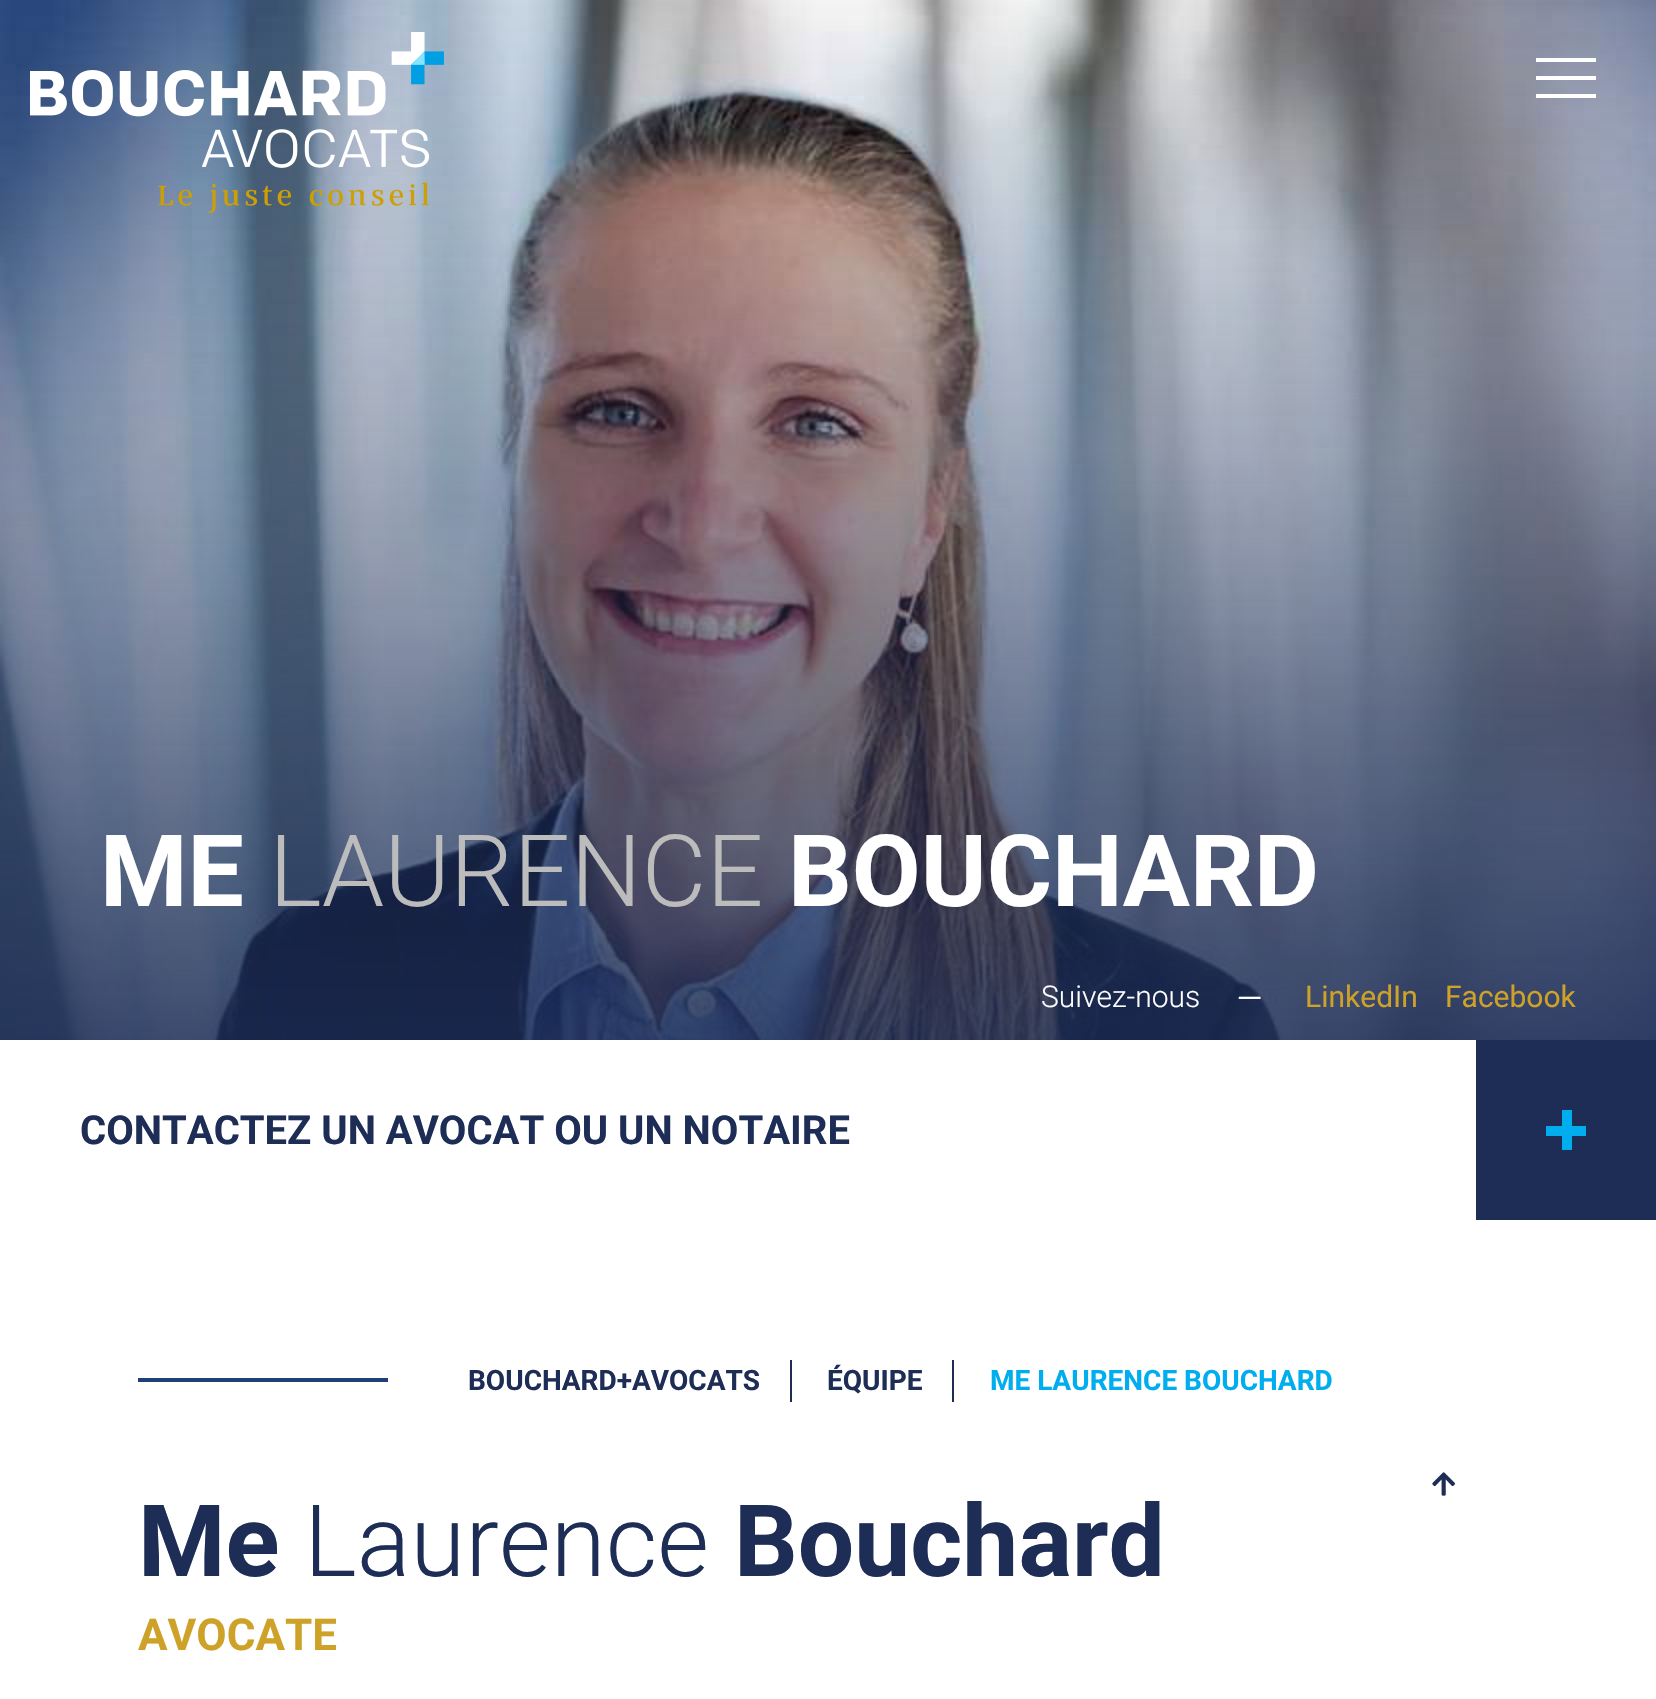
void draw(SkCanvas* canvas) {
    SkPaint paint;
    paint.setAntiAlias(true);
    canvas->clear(0xFFFFFFFF);
    canvas->drawImageRect(SkImages::DeferredFromEncodedData(SkData::MakeFromFileName("img1.png")), SkRect::MakeXYWH(0, 0, 1656, 1040), SkSamplingOptions());
    paint.setColor(0xFFFFFFFF);
    canvas->drawRect(SkRect::MakeXYWH(1536, 58, 60, 4), paint);
    canvas->drawRect(SkRect::MakeXYWH(1536, 76, 60, 4), paint);
    canvas->drawRect(SkRect::MakeXYWH(1536, 94, 60, 4), paint);
    canvas->drawImageRect(SkImages::DeferredFromEncodedData(SkData::MakeFromFileName("img2.png")), SkRect::MakeXYWH(30, 32, 414, 181), SkSamplingOptions());
    SkFont font1(fontMgr->matchFamilyStyle("Roboto", SkFontStyle::Bold()), 100);
    font1.setSubpixel(true);
    canvas->drawString("ME", 100, 906, font1, paint);
    SkFont font2(fontMgr->matchFamilyStyle("Roboto", SkFontStyle(300, SkFontStyle::kNormal_Width, SkFontStyle::kUpright_Slant)), 100);
    font2.setSubpixel(true);
    paint.setColor(0xFFBCBCBC);
    canvas->drawString("LAURENCE", 269, 906, font2, paint);
    paint.setColor(0xFFFFFFFF);
    canvas->drawString("BOUCHARD", 788, 906, font1, paint);
    SkFont font3(fontMgr->matchFamilyStyle("Roboto", SkFontStyle(300, SkFontStyle::kNormal_Width, SkFontStyle::kUpright_Slant)), 30);
    font3.setSubpixel(true);
    canvas->drawString("Suivez-nous", 1041, 1007, font3, paint);
    SkFont font4(fontMgr->matchFamilyStyle("Liberation Sans", SkFontStyle::Normal()), 30);
    font4.setSubpixel(true);
    canvas->drawString("─", 1239, 1007, font4, paint);
    SkFont font5(fontMgr->matchFamilyStyle("Roboto", SkFontStyle::Normal()), 30);
    font5.setSubpixel(true);
    paint.setColor(0xFFCEA229);
    canvas->drawString("LinkedIn", 1305, 1007, font5, paint);
    canvas->drawString("Facebook", 1445, 1007, font5, paint);
    SkFont font6(fontMgr->matchFamilyStyle("Roboto", SkFontStyle::Bold()), 40);
    font6.setSubpixel(true);
    paint.setColor(0xFF1D2D56);
    canvas->drawString("CONTACTEZ UN AVOCAT OU UN NOTAIRE", 80, 1144, font6, paint);
    canvas->drawRect(SkRect::MakeXYWH(1476, 1040, 180, 180), paint);
    paint.setColor(0xFF00ADEE);
    canvas->drawRect(SkRect::MakeXYWH(1562, 1110, 10, 16), paint);
    canvas->drawRect(SkRect::MakeXYWH(1562, 1136, 10, 14), paint);
    canvas->drawRect(SkRect::MakeXYWH(1546, 1126, 40, 10), paint);
    paint.setColor(0xFF203F76);
    canvas->drawRect(SkRect::MakeXYWH(138, 1378, 250, 4), paint);
    paint.setColor(0xFF1D2D56);
    canvas->drawRect(SkRect::MakeXYWH(790, 1360, 2, 42), paint);
    SkFont font7(fontMgr->matchFamilyStyle("Roboto", SkFontStyle::Bold()), 28);
    font7.setSubpixel(true);
    canvas->drawString("BOUCHARD+AVOCATS", 468, 1390, font7, paint);
    canvas->drawRect(SkRect::MakeXYWH(952, 1360, 2, 42), paint);
    canvas->drawString("ÉQUIPE", 827, 1390, font7, paint);
    paint.setColor(0xFF00ADEE);
    canvas->drawString("ME LAURENCE BOUCHARD", 990, 1390, font7, paint);
    paint.setColor(0xFF1D2D56);
    canvas->drawString("Me", 138, 1576, font1, paint);
    canvas->drawString("Laurence", 304, 1576, font2, paint);
    canvas->drawString("Bouchard", 734, 1576, font1, paint);
    SkFont font8(fontMgr->matchFamilyStyle("Roboto", SkFontStyle::Bold()), 44);
    font8.setSubpixel(true);
    paint.setColor(0xFFCEA229);
    canvas->drawString("AVOCATE", 138, 1650, font8, paint);
    canvas->drawImageRect(SkImages::DeferredFromEncodedData(SkData::MakeFromFileName("img3.png")), SkRect::MakeXYWH(1432, 1472, 23, 24), SkSamplingOptions());
}
